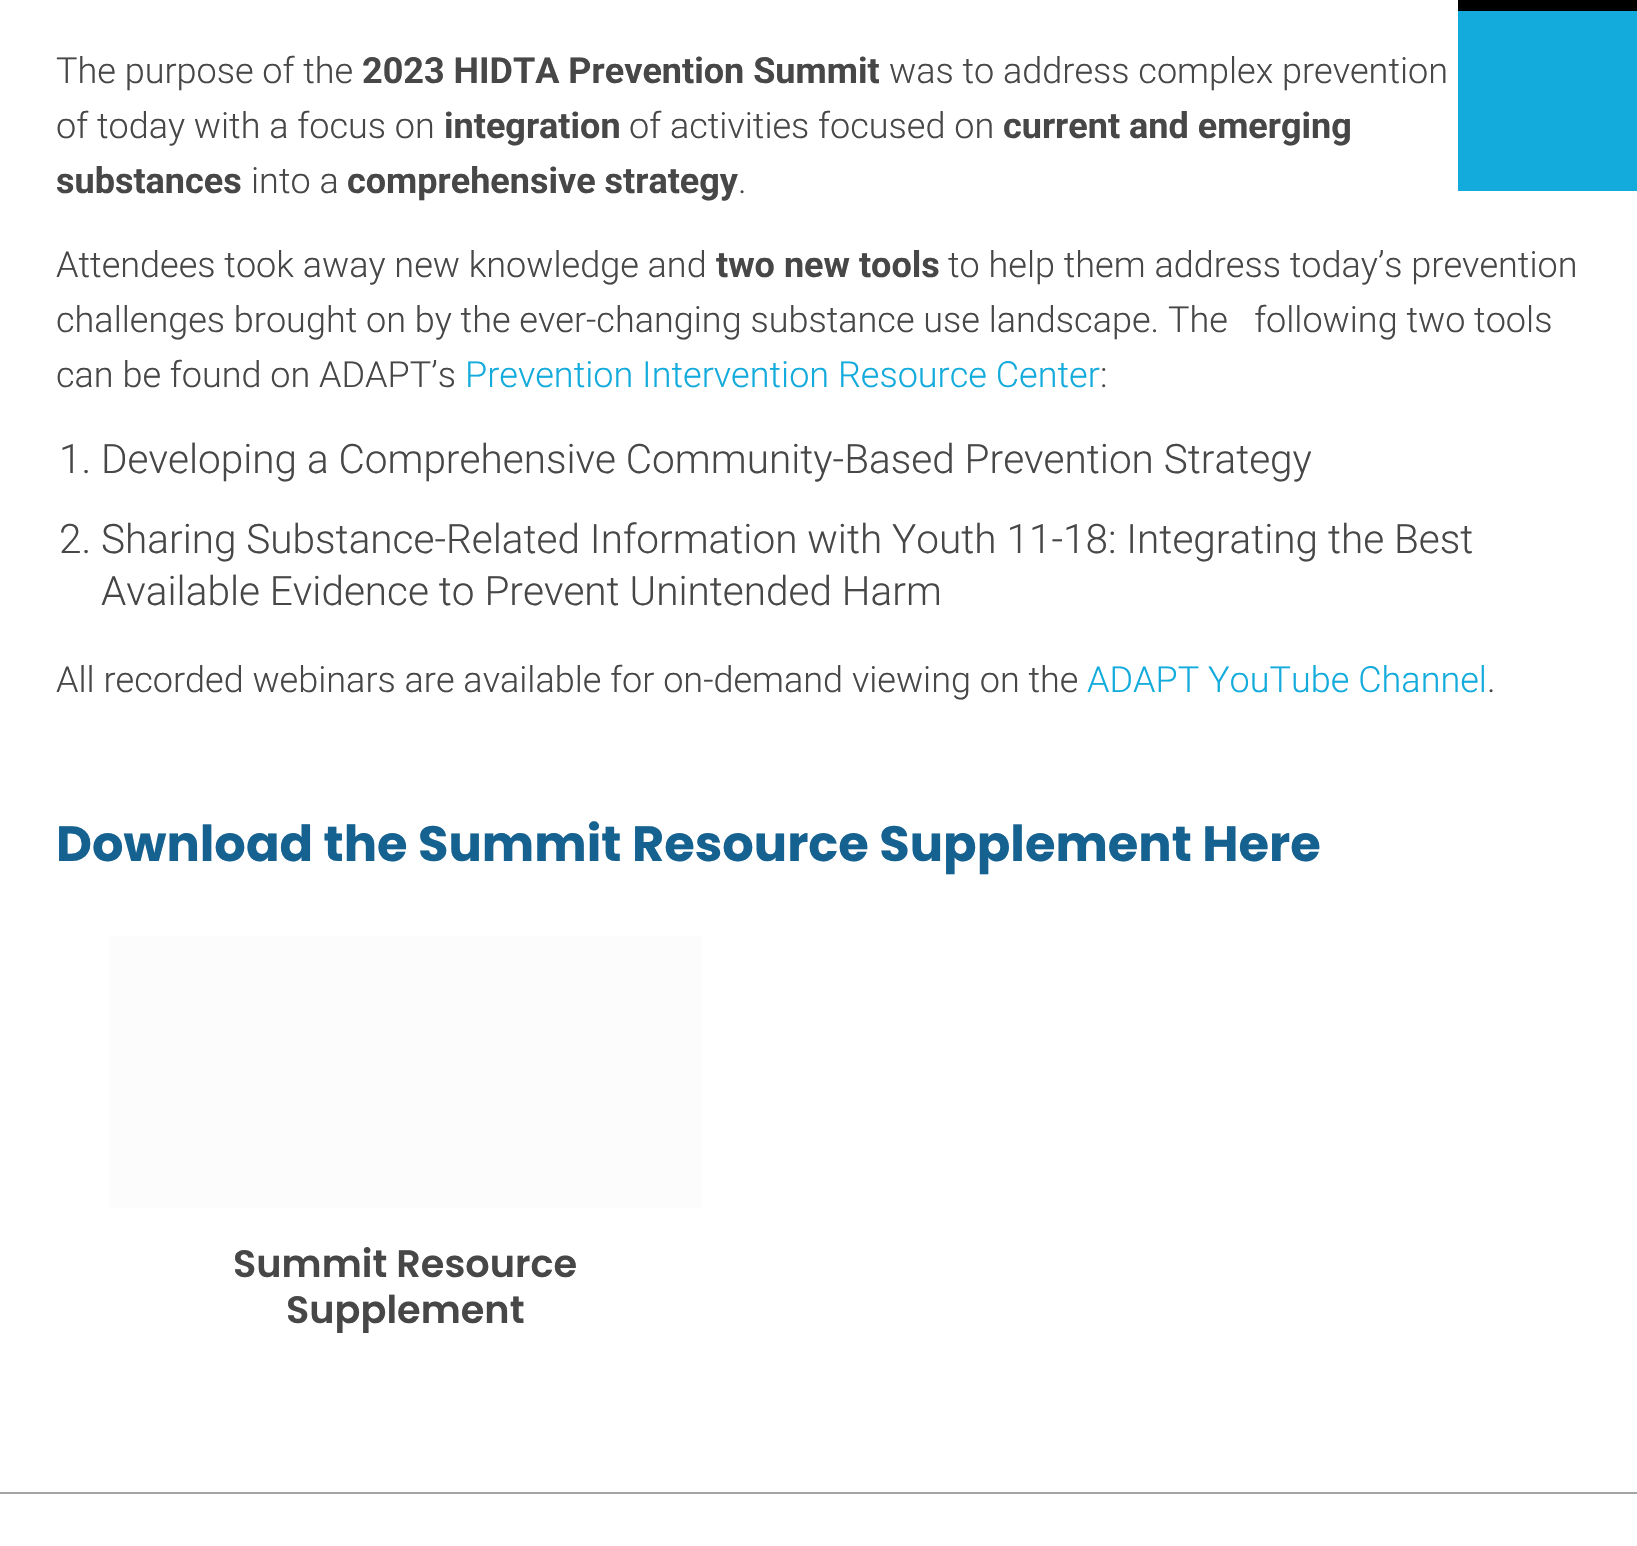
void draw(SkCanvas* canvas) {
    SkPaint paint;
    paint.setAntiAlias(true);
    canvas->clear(0xFFFFFFFF);
    paint.setColor(0xFF12ABDC);
    canvas->drawRect(SkRect::MakeXYWH(1458, 11, 179, 180), paint);
    paint.setColor(0xFF000000);
    canvas->drawRect(SkRect::MakeXYWH(1458, 0, 179, 11), paint);
    SkFont font1(fontMgr->matchFamilyStyle("Roboto", SkFontStyle(300, SkFontStyle::kNormal_Width, SkFontStyle::kUpright_Slant)), 36);
    font1.setSubpixel(true);
    paint.setColor(0xFF474747);
    canvas->drawString("The purpose of the", 56, 83, font1, paint);
    SkFont font2(fontMgr->matchFamilyStyle("Roboto", SkFontStyle::Bold()), 36);
    font2.setSubpixel(true);
    canvas->drawString("2023 HIDTA Prevention Summit", 362, 83, font2, paint);
    canvas->drawString("was to address complex prevention", 889, 83, font1, paint);
    canvas->drawString("of today with a focus on", 56, 138, font1, paint);
    canvas->drawString("integration", 444, 138, font2, paint);
    canvas->drawString("of activities focused on", 629, 138, font1, paint);
    canvas->drawString("current and emerging", 1003, 138, font2, paint);
    canvas->drawString("substances", 56, 193, font2, paint);
    canvas->drawString("into a", 251, 193, font1, paint);
    canvas->drawString("comprehensive strategy", 347, 193, font2, paint);
    canvas->drawString(".", 738, 193, font1, paint);
    canvas->drawString("Attendees took away new knowledge and", 56, 277, font1, paint);
    canvas->drawString("two new tools", 716, 277, font2, paint);
    canvas->drawString("to help them address today’s prevention", 948, 277, font1, paint);
    canvas->drawString("challenges brought on by the ever-changing substance use landscape. The   following two tools", 56, 332, font1, paint);
    canvas->drawString("can be found on ADAPT’s", 56, 387, font1, paint);
    paint.setColor(0xFF12ABDC);
    canvas->drawString("Prevention Intervention Resource Center", 465, 387, font1, paint);
    paint.setColor(0xFF474747);
    canvas->drawString(":", 1100, 387, font1, paint);
    SkFont font3(fontMgr->matchFamilyStyle("Roboto", SkFontStyle(300, SkFontStyle::kNormal_Width, SkFontStyle::kUpright_Slant)), 40.5f);
    font3.setSubpixel(true);
    canvas->drawString("1. Developing a Comprehensive Community-Based Prevention Strategy", 59, 473, font3, paint);
    canvas->drawString("2. Sharing Substance-Related Information with Youth 11-18: Integrating the Best", 59, 553, font3, paint);
    canvas->drawString("Available Evidence to Prevent Unintended Harm", 101, 605, font3, paint);
    canvas->drawString("All recorded webinars are available for on-demand viewing on the", 56, 692, font1, paint);
    paint.setColor(0xFF12ABDC);
    canvas->drawString("ADAPT YouTube Channel", 1087, 692, font1, paint);
    paint.setColor(0xFF474747);
    canvas->drawString(".", 1487, 692, font1, paint);
    SkFont font4(fontMgr->matchFamilyStyle("Poppins", SkFontStyle::Bold()), 49.5f);
    font4.setSubpixel(true);
    paint.setColor(0xFF156190);
    canvas->drawString("Download the Summit Resource Supplement Here", 56, 861, font4, paint);
    paint.setColor(0xFFFCFCFC);
    canvas->drawRect(SkRect::MakeXYWH(110, 936, 592, 272), paint);
    SkFont font5(fontMgr->matchFamilyStyle("Poppins", SkFontStyle(600, SkFontStyle::kNormal_Width, SkFontStyle::kUpright_Slant)), 38.25f);
    font5.setSubpixel(true);
    paint.setColor(0xFF474747);
    canvas->drawString("Summit Resource", 233, 1277, font5, paint);
    canvas->drawString("Supplement", 286, 1323, font5, paint);
    paint.setColor(0xFFA3A3A3);
    canvas->drawRect(SkRect::MakeXYWH(0, 1492, 1637, 2), paint);
}
